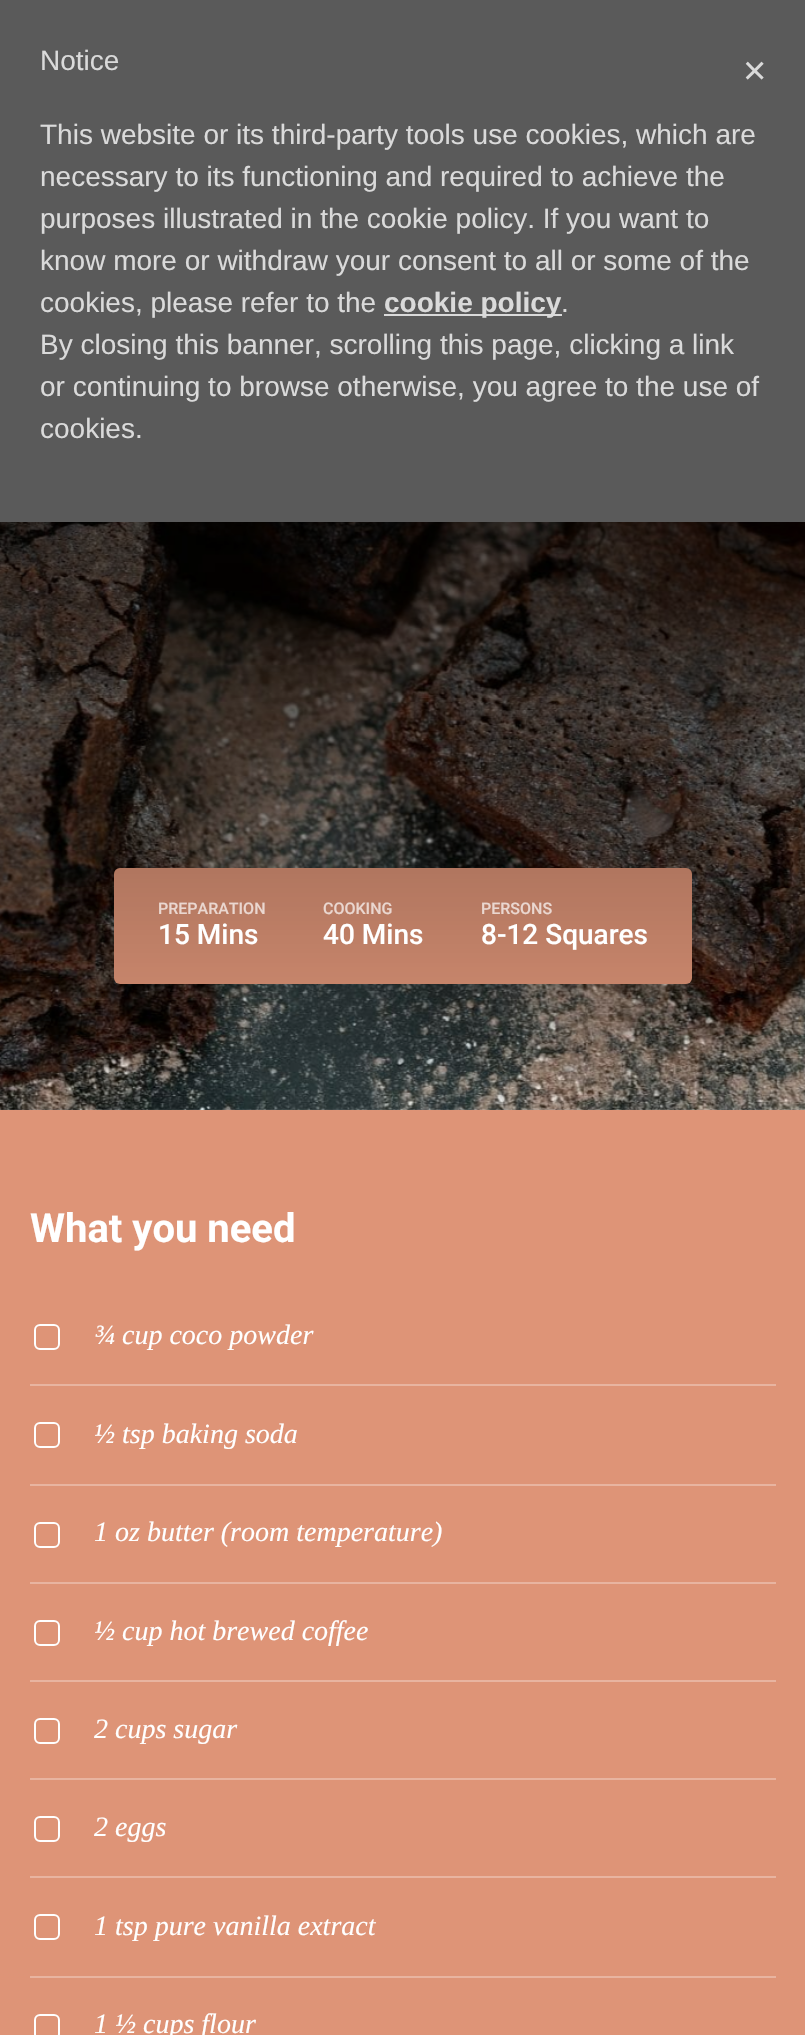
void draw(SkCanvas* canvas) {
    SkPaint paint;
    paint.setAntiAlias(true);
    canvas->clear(0xFFFFFFFF);
    paint.setColor(0xFF5A5A5A);
    canvas->drawRect(SkRect::MakeXYWH(0, 0, 805, 522), paint);
    SkFont font1(fontMgr->matchFamilyStyle("Liberation Sans", SkFontStyle::Normal()), 28);
    font1.setSubpixel(true);
    paint.setColor(0xFFDADADA);
    canvas->drawString("Notice", 40, 70, font1, paint);
    canvas->drawString("This website or its third-party tools use cookies, which are", 40, 144, font1, paint);
    canvas->drawString("necessary to its functioning and required to achieve the", 40, 186, font1, paint);
    canvas->drawString("purposes illustrated in the cookie policy. If you want to", 40, 228, font1, paint);
    canvas->drawString("know more or withdraw your consent to all or some of the", 40, 270, font1, paint);
    canvas->drawString("cookies, please refer to the", 40, 312, font1, paint);
    canvas->drawRect(SkRect::MakeXYWH(384, 314, 178, 2), paint);
    SkFont font2(fontMgr->matchFamilyStyle("Liberation Sans", SkFontStyle::Bold()), 28);
    font2.setSubpixel(true);
    canvas->drawString("cookie policy", 384, 312, font2, paint);
    canvas->drawString(".", 561, 312, font1, paint);
    canvas->drawString("By closing this banner, scrolling this page, clicking a link", 40, 354, font1, paint);
    canvas->drawString("or continuing to browse otherwise, you agree to the use of", 40, 396, font1, paint);
    canvas->drawString("cookies.", 40, 438, font1, paint);
    SkFont font3(fontMgr->matchFamilyStyle("Liberation Sans", SkFontStyle::Normal()), 40);
    font3.setSubpixel(true);
    canvas->drawString("×", 743, 84, font3, paint);
    canvas->drawImageRect(SkImages::DeferredFromEncodedData(SkData::MakeFromFileName("img1.png")), SkRect::MakeXYWH(0, 522, 805, 588), SkSamplingOptions());
    paint.setColor(0xFFDE9477);
    canvas->drawRoundRect(SkRect::MakeXYWH(114, 868, 578, 116), 6, 6, paint);
    {
        const SkColor colors[] = {0x00000000, 0xD6000000};
        const float stops[] = {0, 1};
        const SkPoint ends[] = {{403, 1110}, {403, 110}};
        paint.setShader(SkGradientShader::MakeLinear(ends, colors, stops, 2, SkTileMode::kClamp));
        paint.setAlpha(255);
    }
    canvas->drawRect(SkRect::MakeXYWH(0, 522, 805, 562), paint);
    SkFont font4(fontMgr->matchFamilyStyle("Roboto", SkFontStyle(500, SkFontStyle::kNormal_Width, SkFontStyle::kUpright_Slant)), 16);
    font4.setSubpixel(true);
    paint.setShader(nullptr);
    paint.setColor(0xFFEAD7D0);
    canvas->drawString("PREPARATION", 158, 914, font4, paint);
    SkFont font5(fontMgr->matchFamilyStyle("Roboto", SkFontStyle(500, SkFontStyle::kNormal_Width, SkFontStyle::kUpright_Slant)), 28);
    font5.setSubpixel(true);
    paint.setColor(0xFFFFFFFF);
    canvas->drawString("15 Mins", 158, 944, font5, paint);
    paint.setColor(0xFFEAD7D0);
    canvas->drawString("COOKING", 323, 914, font4, paint);
    paint.setColor(0xFFFFFFFF);
    canvas->drawString("40 Mins", 323, 944, font5, paint);
    paint.setColor(0xFFEAD7D0);
    canvas->drawString("PERSONS", 481, 914, font4, paint);
    paint.setColor(0xFFFFFFFF);
    canvas->drawString("8-12 Squares", 481, 944, font5, paint);
    paint.setColor(0xFFDE9477);
    canvas->drawRect(SkRect::MakeXYWH(0, 1110, 805, 925), paint);
    SkFont font6(fontMgr->matchFamilyStyle("Roboto", SkFontStyle::Bold()), 40);
    font6.setSubpixel(true);
    paint.setColor(0xFFFFFFFF);
    canvas->drawString("What you need", 30, 1242, font6, paint);
    paint.setColor(0xFFE8B4A0);
    canvas->drawRect(SkRect::MakeXYWH(30, 1384, 746, 2), paint);
    paint.setStyle(SkPaint::kStroke_Style);
    paint.setStrokeWidth(2);
    paint.setColor(0xFFFFFFFF);
    canvas->drawRoundRect(SkRect::MakeXYWH(35, 1325, 24, 24), 5, 5, paint);
    SkFont font7(fontMgr->matchFamilyStyle("Liberation Serif", SkFontStyle::Italic()), 28);
    font7.setSubpixel(true);
    paint.setStyle(SkPaint::kFill_Style);
    canvas->drawString("¾ cup coco powder", 94, 1344, font7, paint);
    paint.setColor(0xFFE8B4A0);
    canvas->drawRect(SkRect::MakeXYWH(30, 1484, 746, 2), paint);
    paint.setStyle(SkPaint::kStroke_Style);
    paint.setColor(0xFFFFFFFF);
    canvas->drawRoundRect(SkRect::MakeXYWH(35, 1423, 24, 24), 5, 5, paint);
    paint.setStyle(SkPaint::kFill_Style);
    canvas->drawString("½ tsp baking soda", 94, 1443, font7, paint);
    paint.setColor(0xFFE8B4A0);
    canvas->drawRect(SkRect::MakeXYWH(30, 1582, 746, 2), paint);
    paint.setStyle(SkPaint::kStroke_Style);
    paint.setColor(0xFFFFFFFF);
    canvas->drawRoundRect(SkRect::MakeXYWH(35, 1523, 24, 24), 5, 5, paint);
    paint.setStyle(SkPaint::kFill_Style);
    canvas->drawString("1 oz butter (room temperature)", 94, 1541, font7, paint);
    paint.setColor(0xFFE8B4A0);
    canvas->drawRect(SkRect::MakeXYWH(30, 1680, 746, 2), paint);
    paint.setStyle(SkPaint::kStroke_Style);
    paint.setColor(0xFFFFFFFF);
    canvas->drawRoundRect(SkRect::MakeXYWH(35, 1621, 24, 24), 5, 5, paint);
    paint.setStyle(SkPaint::kFill_Style);
    canvas->drawString("½ cup hot brewed coffee", 94, 1640, font7, paint);
    paint.setColor(0xFFE8B4A0);
    canvas->drawRect(SkRect::MakeXYWH(30, 1778, 746, 2), paint);
    paint.setStyle(SkPaint::kStroke_Style);
    paint.setColor(0xFFFFFFFF);
    canvas->drawRoundRect(SkRect::MakeXYWH(35, 1719, 24, 24), 5, 5, paint);
    paint.setStyle(SkPaint::kFill_Style);
    canvas->drawString("2 cups sugar", 94, 1738, font7, paint);
    paint.setColor(0xFFE8B4A0);
    canvas->drawRect(SkRect::MakeXYWH(30, 1876, 746, 2), paint);
    paint.setStyle(SkPaint::kStroke_Style);
    paint.setColor(0xFFFFFFFF);
    canvas->drawRoundRect(SkRect::MakeXYWH(35, 1817, 24, 24), 5, 5, paint);
    paint.setStyle(SkPaint::kFill_Style);
    canvas->drawString("2 eggs", 94, 1836, font7, paint);
    paint.setColor(0xFFE8B4A0);
    canvas->drawRect(SkRect::MakeXYWH(30, 1976, 746, 2), paint);
    paint.setStyle(SkPaint::kStroke_Style);
    paint.setColor(0xFFFFFFFF);
    canvas->drawRoundRect(SkRect::MakeXYWH(35, 1915, 24, 24), 5, 5, paint);
    paint.setStyle(SkPaint::kFill_Style);
    canvas->drawString("1 tsp pure vanilla extract", 94, 1935, font7, paint);
    paint.setStyle(SkPaint::kStroke_Style);
    canvas->drawRoundRect(SkRect::MakeXYWH(35, 2015, 24, 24), 5, 5, paint);
    paint.setStyle(SkPaint::kFill_Style);
    canvas->drawString("1 ½ cups flour", 94, 2033, font7, paint);
}
